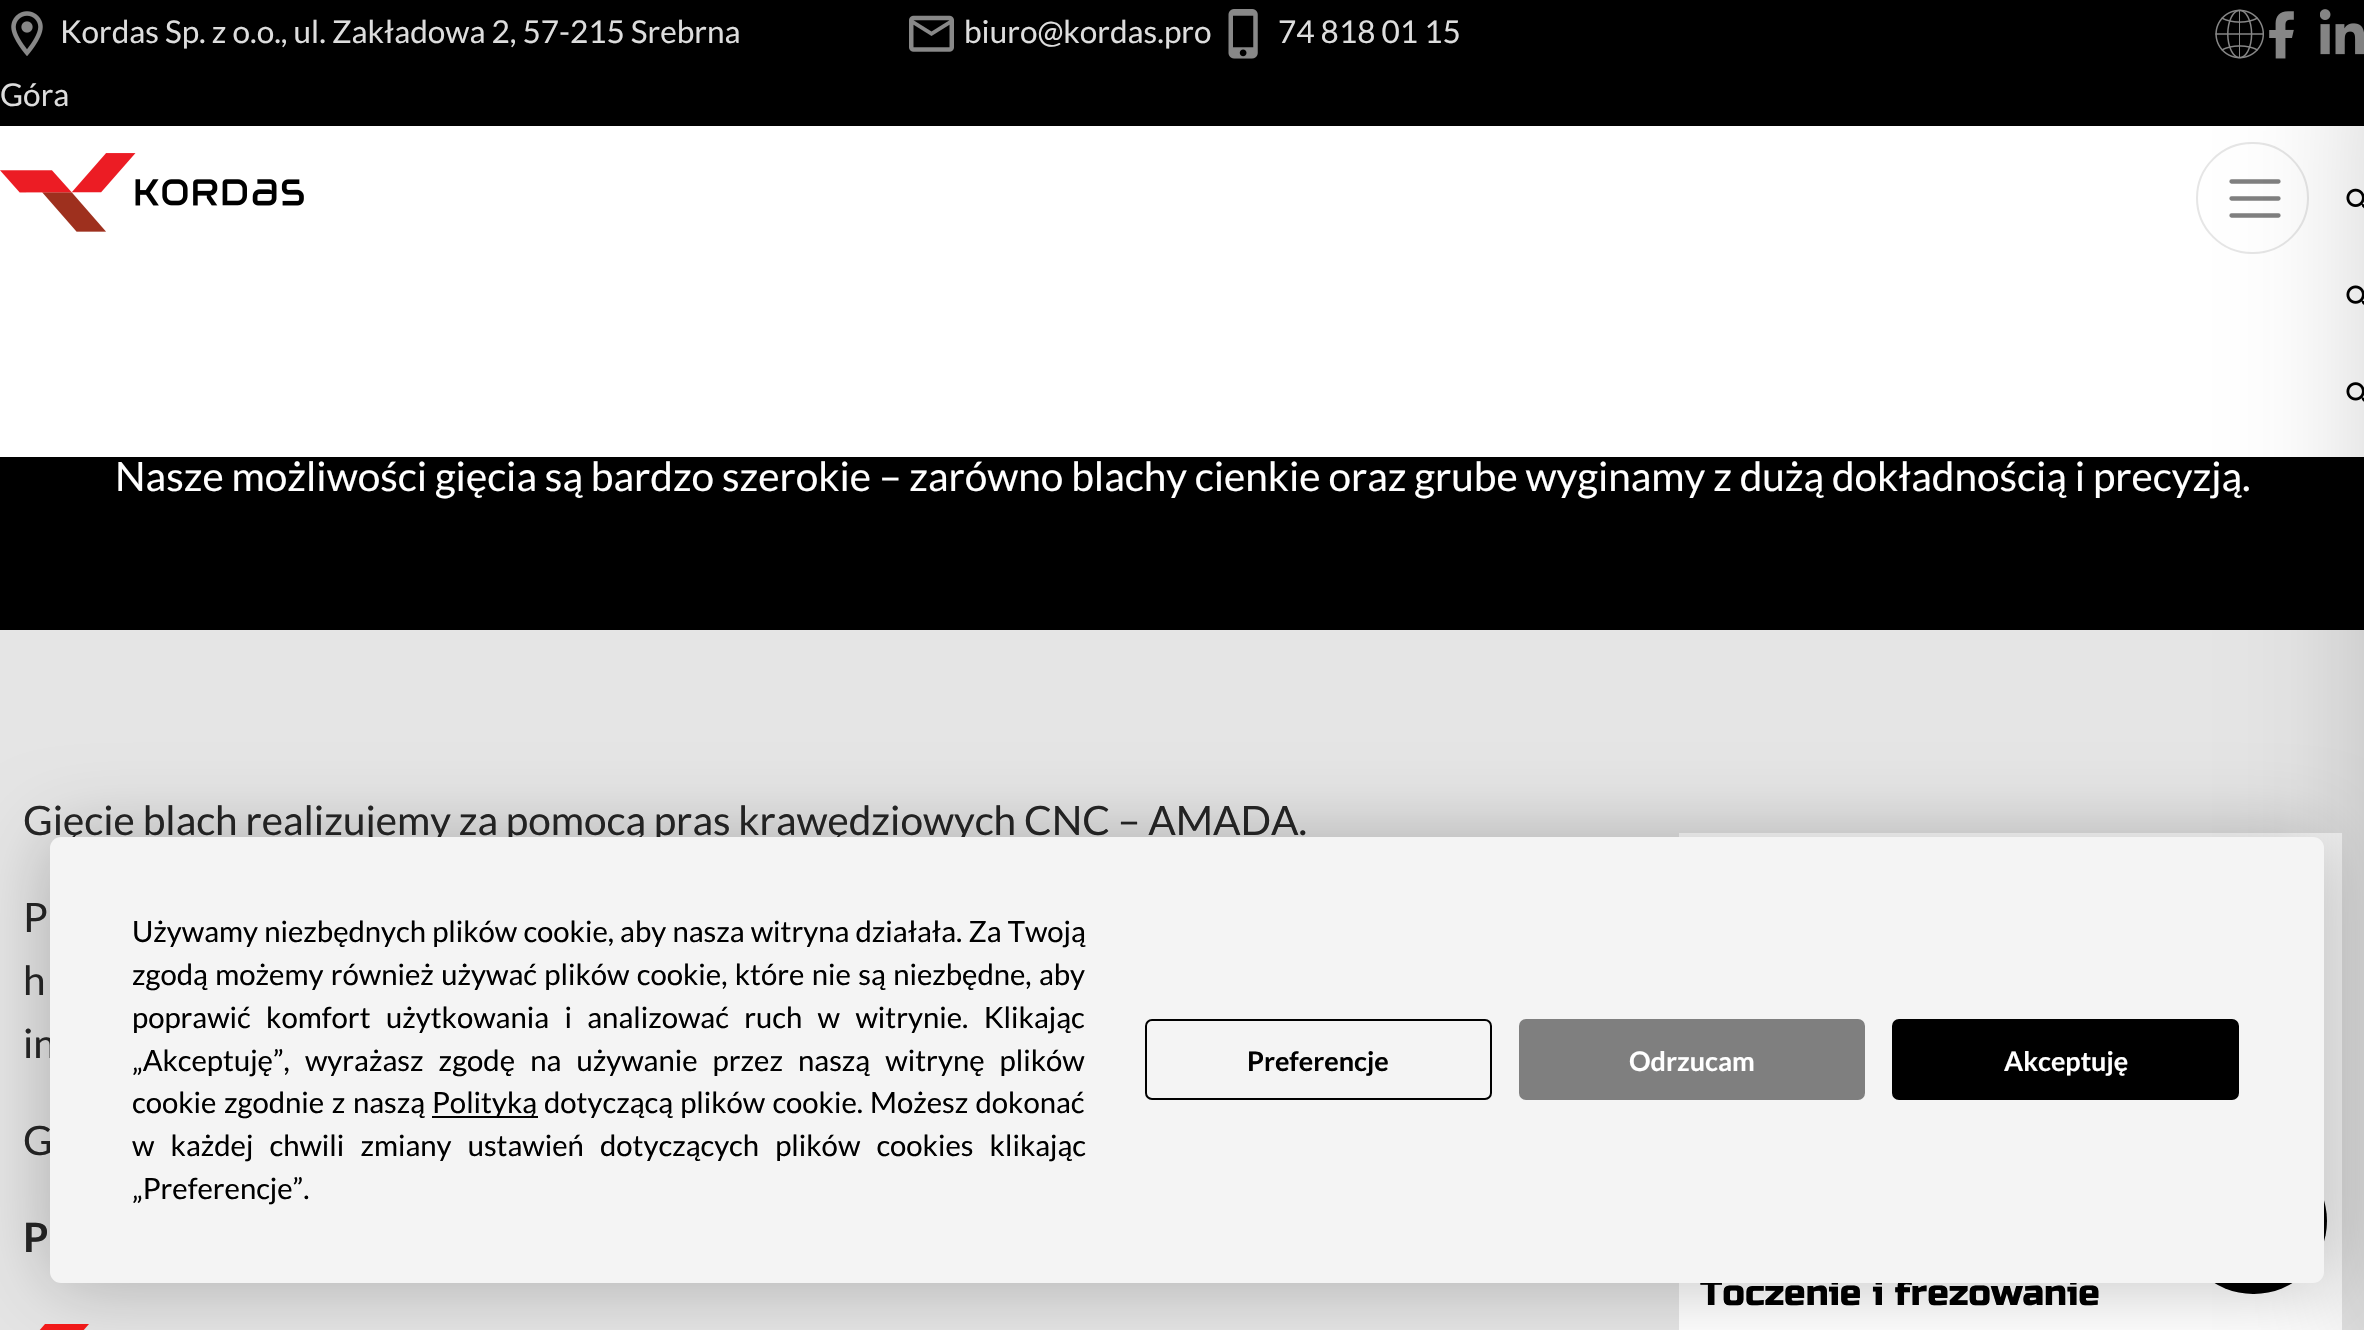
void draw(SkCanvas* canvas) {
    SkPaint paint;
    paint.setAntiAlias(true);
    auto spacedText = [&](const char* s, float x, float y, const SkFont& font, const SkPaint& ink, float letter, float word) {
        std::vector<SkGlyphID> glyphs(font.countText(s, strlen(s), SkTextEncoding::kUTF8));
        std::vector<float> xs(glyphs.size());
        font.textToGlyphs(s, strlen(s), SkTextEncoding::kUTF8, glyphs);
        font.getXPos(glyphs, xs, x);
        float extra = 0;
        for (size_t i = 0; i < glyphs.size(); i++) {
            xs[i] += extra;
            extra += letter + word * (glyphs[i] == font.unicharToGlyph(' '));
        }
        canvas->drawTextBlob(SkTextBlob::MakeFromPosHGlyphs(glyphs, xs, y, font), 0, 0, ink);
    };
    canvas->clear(0xFFE5E5E5);
    paint.setColor(0xFFFFFFFF);
    canvas->drawRect(SkRect::MakeXYWH(0, 126, 2364, 331), paint);
    paint.setColor(0xFF000000);
    canvas->drawRect(SkRect::MakeXYWH(0, 0, 2364, 126), paint);
    canvas->drawImageRect(SkImages::DeferredFromEncodedData(SkData::MakeFromFileName("img1.png")), SkRect::MakeXYWH(11, 11, 32, 45), SkSamplingOptions());
    SkFont font1(fontMgr->matchFamilyStyle("Lato", SkFontStyle::Normal()), 31.5f);
    font1.setSubpixel(true);
    paint.setColor(0xFFDDDDDD);
    canvas->drawString("Kordas Sp. z o.o., ul. Zakładowa 2, 57-215 Srebrna", 60, 43, font1, paint);
    canvas->drawString("Góra", 0, 106, font1, paint);
    canvas->drawImageRect(SkImages::DeferredFromEncodedData(SkData::MakeFromFileName("img2.png")), SkRect::MakeXYWH(909, 15, 45, 37), SkSamplingOptions());
    canvas->drawString("biuro@kordas.pro", 964, 43, font1, paint);
    canvas->drawImageRect(SkImages::DeferredFromEncodedData(SkData::MakeFromFileName("img3.png")), SkRect::MakeXYWH(1228, 9, 30, 50), SkSamplingOptions());
    canvas->drawString("74 818 01 15", 1278, 43, font1, paint);
    canvas->drawImageRect(SkImages::DeferredFromEncodedData(SkData::MakeFromFileName("img4.png")), SkRect::MakeXYWH(2215, 9, 49, 50), SkSamplingOptions());
    canvas->drawImageRect(SkImages::DeferredFromEncodedData(SkData::MakeFromFileName("img5.png")), SkRect::MakeXYWH(2269, 11, 25, 48), SkSamplingOptions());
    canvas->drawImageRect(SkImages::DeferredFromEncodedData(SkData::MakeFromFileName("img6.png")), SkRect::MakeXYWH(2320, 9, 44, 46), SkSamplingOptions());
    canvas->drawImageRect(SkImages::DeferredFromEncodedData(SkData::MakeFromFileName("img7.png")), SkRect::MakeXYWH(0, 153, 304, 79), SkSamplingOptions());
    paint.setStyle(SkPaint::kStroke_Style);
    paint.setStrokeWidth(2);
    paint.setColor(0xFFE6E6E6);
    canvas->drawRoundRect(SkRect::MakeXYWH(2197, 143, 111, 110), 55, 55, paint);
    paint.setStrokeWidth(4.3f);
    paint.setStrokeCap(SkPaint::kRound_Cap);
    paint.setColor(0xFF808080);
    canvas->drawPath(SkPathBuilder().moveTo(2231.5f, 181.5f).lineTo(2278.5f, 181.5f).moveTo(2231.5f, 198.5f).lineTo(2278.5f, 198.5f).moveTo(2231.5f, 215.5f).lineTo(2278.5f, 215.5f).detach(), paint);
    canvas->drawImageRect(SkImages::DeferredFromEncodedData(SkData::MakeFromFileName("img8.png")), SkRect::MakeXYWH(2346, 188, 18, 21), SkSamplingOptions());
    canvas->drawImageRect(SkImages::DeferredFromEncodedData(SkData::MakeFromFileName("img9.png")), SkRect::MakeXYWH(2346, 285, 18, 20), SkSamplingOptions());
    canvas->drawImageRect(SkImages::DeferredFromEncodedData(SkData::MakeFromFileName("img10.png")), SkRect::MakeXYWH(2346, 382, 18, 20), SkSamplingOptions());
    paint.setStyle(SkPaint::kFill_Style);
    paint.setColor(0xFF000000);
    canvas->drawRect(SkRect::MakeXYWH(0, 457, 2364, 173), paint);
    paint.setColor(0xFFFFFFFF);
    canvas->drawRect(SkRect::MakeXYWH(1679, 833, 663, 497), paint);
    paint.setColor(0xFF000000);
    canvas->drawRoundRect(SkRect::MakeXYWH(2180, 1148, 147, 146), 73, 73, paint);
    paint.setColor(0x33000000);
    paint.setMaskFilter(SkMaskFilter::MakeBlur(kNormal_SkBlurStyle, 67.5f));
    canvas->drawRect(SkRect::MakeXYWH(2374, 23, 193, 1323), paint);
    paint.setMaskFilter(nullptr);
    SkFont font2(fontMgr->matchFamilyStyle("Lato", SkFontStyle::Normal()), 40.5f);
    font2.setSubpixel(true);
    paint.setColor(0xFFFFFFFF);
    canvas->drawString("Nasze możliwości gięcia są bardzo szerokie – zarówno blachy cienkie oraz grube wyginamy z dużą dokładnością i precyzją.", 115, 491, font2, paint);
    paint.setColor(0xFF262626);
    canvas->drawString("Gięcie blach realizujemy za pomocą pras krawędziowych CNC – AMADA.", 23, 835, font2, paint);
    spacedText("P", 23, 932, font2, paint, 0, 8);
    spacedText("h", 23, 995, font2, paint, 0, 24);
    canvas->drawString("in", 23, 1058, font2, paint);
    canvas->drawString("G", 23, 1155, font2, paint);
    SkFont font3(fontMgr->matchFamilyStyle("Lato", SkFontStyle::Bold()), 40.5f);
    font3.setSubpixel(true);
    canvas->drawString("P", 23, 1252, font3, paint);
    paint.setColor(0xFFF61A1A);
    canvas->drawPath(SkPathBuilder().moveTo(45, 1324).lineTo(89, 1324).lineTo(67, 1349).lineTo(23, 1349).close().detach(), paint);
    SkFont font4(fontMgr->matchFamilyStyle("Russo One", SkFontStyle::Normal()), 36);
    font4.setSubpixel(true);
    paint.setColor(0xFF000000);
    canvas->drawString("Toczenie i frezowanie", 1700, 1305, font4, paint);
    paint.setColor(0x40000000);
    paint.setMaskFilter(SkMaskFilter::MakeBlur(kNormal_SkBlurStyle, 39.5f));
    canvas->drawRoundRect(SkRect::MakeXYWH(50, 837, 2274, 446), 11, 11, paint);
    paint.setMaskFilter(nullptr);
    paint.setColor(0xFFF4F4F4);
    canvas->drawRoundRect(SkRect::MakeXYWH(50, 837, 2274, 446), 11, 11, paint);
    SkFont font5(fontMgr->matchFamilyStyle("Lato", SkFontStyle::Normal()), 29.25f);
    font5.setSubpixel(true);
    paint.setColor(0xFF000000);
    spacedText("Używamy niezbędnych plików cookie, aby nasza witryna działała. Za Twoją", 132, 942, font5, paint, 0, 0.5f);
    spacedText("zgodą możemy również używać plików cookie, które nie są niezbędne, aby", 132, 985, font5, paint, 0, 1.75f);
    spacedText("poprawić komfort użytkowania i analizować ruch w witrynie. Klikając", 132, 1028, font5, paint, 0, 9.75f);
    spacedText("„Akceptuję”, wyrażasz zgodę na używanie przez naszą witrynę plików", 132, 1071, font5, paint, 0, 9.5f);
    spacedText("cookie zgodnie z naszą", 132, 1113, font5, paint, 0, 2);
    canvas->drawRect(SkRect::MakeXYWH(432, 1116, 106, 2), paint);
    canvas->drawString("Polityką", 432, 1113, font5, paint);
    spacedText("dotyczącą plików cookie. Możesz dokonać", 544, 1113, font5, paint, 0, 1.5f);
    spacedText("w każdej chwili zmiany ustawień dotyczących plików cookies klikając", 132, 1156, font5, paint, 0, 10.5f);
    canvas->drawString("„Preferencje”.", 132, 1199, font5, paint);
    paint.setStyle(SkPaint::kStroke_Style);
    paint.setStrokeWidth(2);
    paint.setStrokeCap(SkPaint::kButt_Cap);
    canvas->drawRoundRect(SkRect::MakeXYWH(1146, 1020, 345, 79), 6, 6, paint);
    SkFont font6(fontMgr->matchFamilyStyle("Lato", SkFontStyle::Bold()), 27);
    font6.setSubpixel(true);
    paint.setStyle(SkPaint::kFill_Style);
    canvas->drawString("Preferencje", 1247, 1071, font6, paint);
    paint.setColor(0xFF7F7F7F);
    canvas->drawRoundRect(SkRect::MakeXYWH(1520, 1020, 344, 79), 6, 6, paint);
    paint.setStyle(SkPaint::kStroke_Style);
    canvas->drawRoundRect(SkRect::MakeXYWH(1520, 1020, 344, 79), 6, 6, paint);
    paint.setStyle(SkPaint::kFill_Style);
    paint.setColor(0xFFFFFFFF);
    canvas->drawString("Odrzucam", 1629, 1071, font6, paint);
    paint.setColor(0xFF000000);
    canvas->drawRoundRect(SkRect::MakeXYWH(1893, 1020, 345, 79), 6, 6, paint);
    paint.setStyle(SkPaint::kStroke_Style);
    canvas->drawRoundRect(SkRect::MakeXYWH(1893, 1020, 345, 79), 6, 6, paint);
    paint.setStyle(SkPaint::kFill_Style);
    paint.setColor(0xFFFFFFFF);
    canvas->drawString("Akceptuję", 2004, 1071, font6, paint);
}
